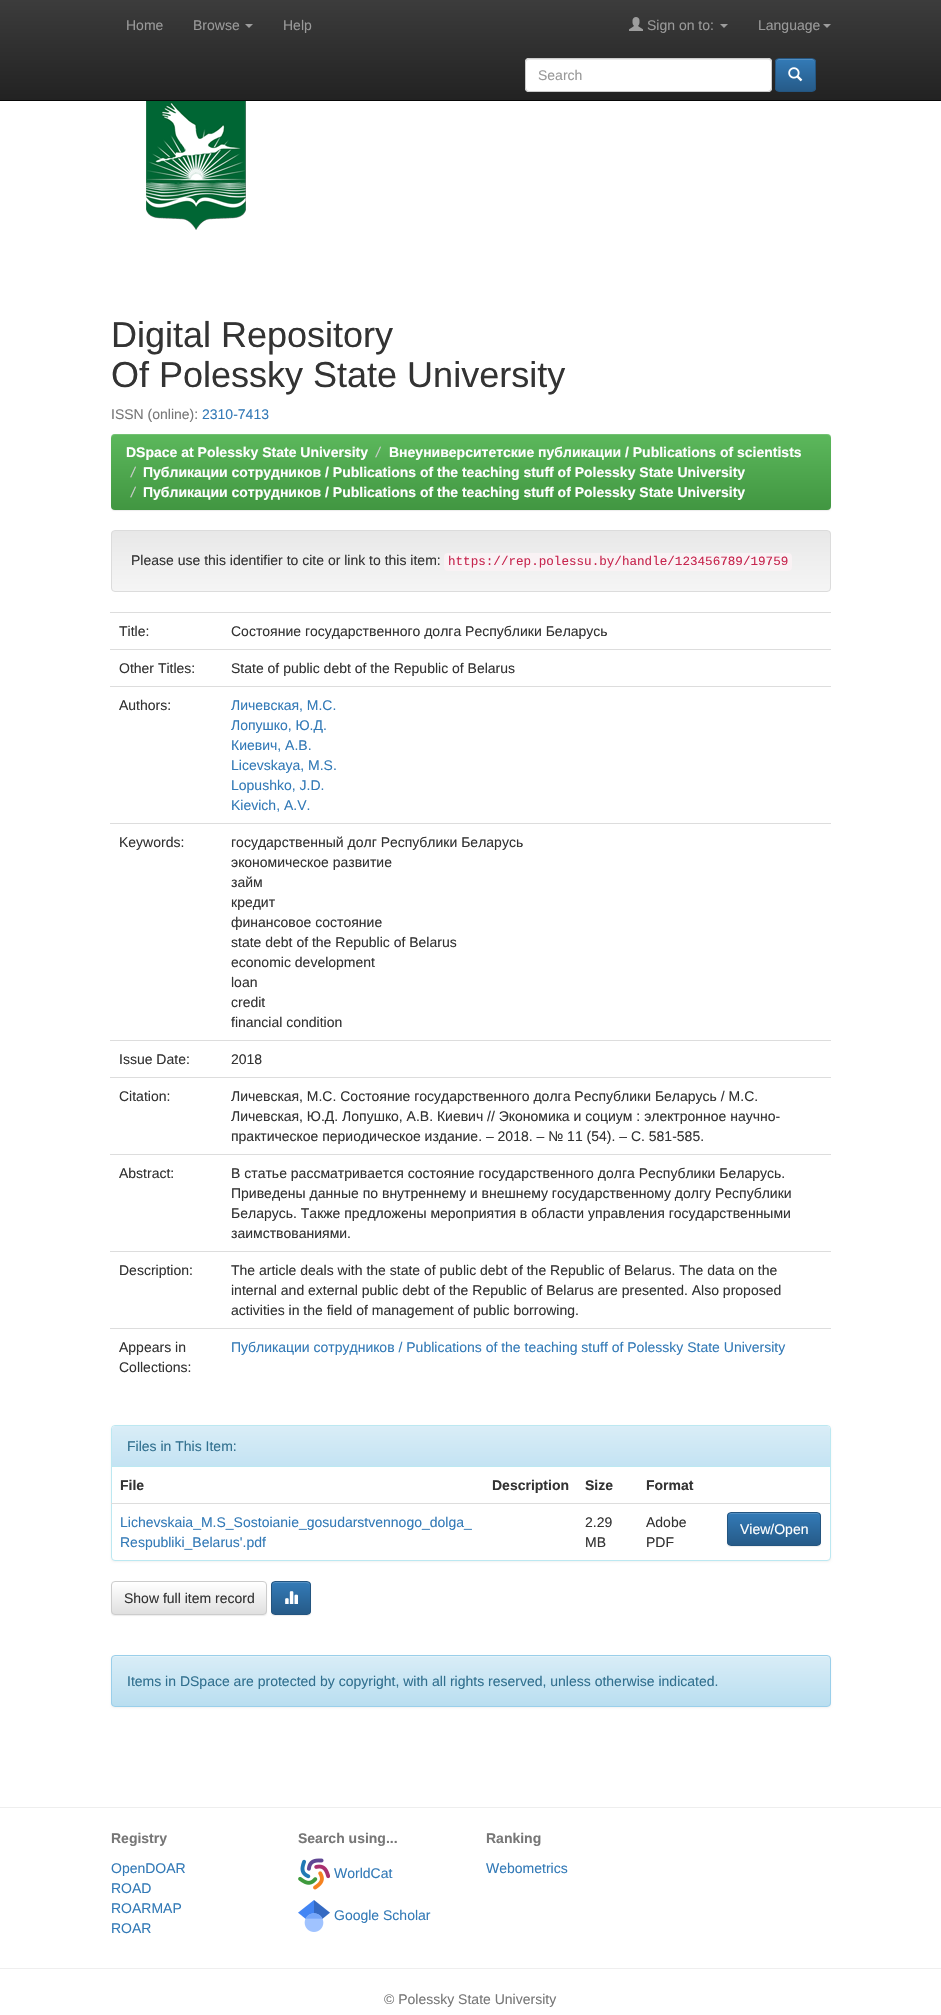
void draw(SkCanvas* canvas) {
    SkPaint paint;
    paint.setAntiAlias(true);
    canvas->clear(0xFFFFFFFF);
    {
        const SkColor colors[] = {0xFF3C3C3C, 0xFF222222};
        const float stops[] = {0, 1};
        const SkPoint ends[] = {{471, 0}, {471, 100}};
        paint.setShader(SkGradientShader::MakeLinear(ends, colors, stops, 2, SkTileMode::kClamp));
        paint.setAlpha(255);
    }
    canvas->drawRect(SkRect::MakeXYWH(0, 0, 941, 100), paint);
    paint.setShader(nullptr);
    paint.setColor(0xFF080808);
    canvas->drawRect(SkRect::MakeXYWH(0, 100, 941, 1), paint);
    SkFont font1(fontMgr->matchFamilyStyle("Liberation Sans", SkFontStyle::Normal()), 14);
    font1.setSubpixel(true);
    paint.setColor(0xFF999999);
    canvas->drawString("Home", 126, 30, font1, paint);
    canvas->drawString("Browse", 193, 30, font1, paint);
    paint.setColor(0xFF9D9D9D);
    canvas->drawPath(SkPathBuilder().moveTo(245, 24).lineTo(253, 24).lineTo(249, 28).close().detach(), paint);
    paint.setColor(0xFF999999);
    canvas->drawString("Help", 283, 30, font1, paint);
    canvas->drawImageRect(SkImages::DeferredFromEncodedData(SkData::MakeFromFileName("img1.png")), SkRect::MakeXYWH(629, 17, 14, 14), SkSamplingOptions());
    canvas->drawString("Sign on to:", 647, 30, font1, paint);
    paint.setColor(0xFF9D9D9D);
    canvas->drawPath(SkPathBuilder().moveTo(720, 24).lineTo(728, 24).lineTo(724, 28).close().detach(), paint);
    paint.setColor(0xFF999999);
    canvas->drawString("Language", 758, 30, font1, paint);
    paint.setColor(0xFF9D9D9D);
    canvas->drawPath(SkPathBuilder().moveTo(823, 24).lineTo(831, 24).lineTo(827, 28).close().detach(), paint);
    paint.setColor(0xFFFFFFFF);
    canvas->drawRoundRect(SkRect::MakeXYWH(525, 58, 247, 34), 4, 4, paint);
    paint.setColor(0xFFECECEC);
    canvas->drawPath(SkPathBuilder().moveTo(529, 60).lineTo(769, 60).lineTo(771, 61).lineTo(771, 63).cubicTo(771, 61, 770, 59, 768, 59).lineTo(529, 59).cubicTo(527, 59, 526, 61, 526, 63).cubicTo(526, 61, 527, 60, 529, 60).close().detach(), paint);
    paint.setStyle(SkPaint::kStroke_Style);
    paint.setStrokeWidth(1);
    paint.setColor(0xFFCCCCCC);
    canvas->drawRoundRect(SkRect::MakeXYWH(525.5f, 58.5f, 246, 33), 3.5f, 3.5f, paint);
    paint.setStyle(SkPaint::kFill_Style);
    paint.setColor(0xFF999999);
    canvas->drawString("Search", 538, 80, font1, paint);
    canvas->save();
    canvas->clipPath(SkPathBuilder().moveTo(779, 58).lineTo(812, 58).cubicTo(814, 58, 816, 60, 816, 62).lineTo(816, 88).cubicTo(816, 90, 814, 92, 812, 92).lineTo(779, 92).cubicTo(777, 92, 775, 90, 775, 88).lineTo(775, 62).cubicTo(775, 60, 777, 58, 779, 58).close().detach(), true);
    {
        const SkColor colors[] = {0xFF337AB7, 0xFF265A88};
        const float stops[] = {0, 1};
        const SkPoint ends[] = {{796, 59}, {796, 91}};
        paint.setShader(SkGradientShader::MakeLinear(ends, colors, stops, 2, SkTileMode::kClamp));
        paint.setAlpha(255);
    }
    canvas->drawRect(SkRect::MakeXYWH(775, 59, 41, 32), paint);
    canvas->restore();
    paint.setShader(nullptr);
    paint.setColor(0xFF528EC1);
    canvas->drawPath(SkPathBuilder().moveTo(779, 60).lineTo(812, 60).cubicTo(814, 60, 815, 61, 815, 63).cubicTo(815, 57.5f, 811, 59, 806.5f, 59).lineTo(784.5f, 59).cubicTo(780, 59, 776, 57.5f, 776, 63).cubicTo(776, 61, 777, 60, 779, 60).close().detach(), paint);
    paint.setStyle(SkPaint::kStroke_Style);
    paint.setColor(0xFF245580);
    canvas->drawRoundRect(SkRect::MakeXYWH(775.5f, 58.5f, 40, 33), 3.5f, 3.5f, paint);
    canvas->drawImageRect(SkImages::DeferredFromEncodedData(SkData::MakeFromFileName("img2.png")), SkRect::MakeXYWH(788, 67, 15, 15), SkSamplingOptions());
    canvas->drawImageRect(SkImages::DeferredFromEncodedData(SkData::MakeFromFileName("img3.png")), SkRect::MakeXYWH(146, 101, 100, 129), SkSamplingOptions());
    SkFont font2(fontMgr->matchFamilyStyle("Liberation Sans", SkFontStyle::Normal()), 36);
    font2.setSubpixel(true);
    paint.setStyle(SkPaint::kFill_Style);
    paint.setColor(0xFF333333);
    canvas->drawString("Digital Repository", 111, 347, font2, paint);
    canvas->drawString("Of Polessky State University", 111, 387, font2, paint);
    paint.setColor(0xFF777777);
    canvas->drawString("ISSN (online):", 111, 419, font1, paint);
    paint.setColor(0xFF337AB7);
    canvas->drawString("2310-7413", 202, 419, font1, paint);
    paint.setColor(0x12000000);
    paint.setMaskFilter(SkMaskFilter::MakeBlur(kNormal_SkBlurStyle, 0.5f));
    canvas->drawRoundRect(SkRect::MakeXYWH(111, 435, 720, 76), 4, 4, paint);
    paint.setMaskFilter(nullptr);
    {
        const SkColor colors[] = {0xFF5CB85C, 0xFF419641};
        const float stops[] = {0, 1};
        const SkPoint ends[] = {{471, 434}, {471, 510}};
        paint.setShader(SkGradientShader::MakeLinear(ends, colors, stops, 2, SkTileMode::kClamp));
        paint.setAlpha(255);
    }
    canvas->drawRoundRect(SkRect::MakeXYWH(111, 434, 720, 76), 4, 4, paint);
    paint.setShader(nullptr);
    paint.setColor(0x26FFFFFF);
    canvas->drawPath(SkPathBuilder().moveTo(115, 435).lineTo(827, 435).cubicTo(829, 435, 831, 437, 831, 439).cubicTo(831, 436, 830, 434, 827, 434).lineTo(115, 434).lineTo(112, 435).lineTo(111, 436).lineTo(111, 439).cubicTo(111, 437, 113, 435, 115, 435).close().detach(), paint);
    SkFont font3(fontMgr->matchFamilyStyle("Liberation Sans", SkFontStyle::Bold()), 14);
    font3.setSubpixel(true);
    paint.setColor(0xFFFFFFFF);
    canvas->drawString("DSpace at Polessky State University", 126, 457, font3, paint);
    SkFont font4(fontMgr->matchFamilyStyle("Liberation Sans", SkFontStyle::Italic()), 14);
    font4.setSubpixel(true);
    paint.setColor(0xFFCCCCCC);
    canvas->drawString("/", 376, 457, font4, paint);
    paint.setColor(0xFFFFFFFF);
    canvas->drawString("Внеуниверситетские публикации / Publications of scientists", 389, 457, font3, paint);
    paint.setColor(0xFFCCCCCC);
    canvas->drawString("/", 131, 477, font4, paint);
    paint.setColor(0xFFFFFFFF);
    canvas->drawString("Публикации сотрудников / Publications of the teaching stuff of Polessky State University", 143, 477, font3, paint);
    paint.setColor(0xFFCCCCCC);
    canvas->drawString("/", 131, 497, font4, paint);
    paint.setColor(0xFFFFFFFF);
    canvas->drawString("Публикации сотрудников / Publications of the teaching stuff of Polessky State University", 143, 497, font3, paint);
    canvas->save();
    canvas->clipPath(SkPathBuilder().moveTo(115, 530).lineTo(827, 530).cubicTo(829, 530, 831, 532, 831, 534).lineTo(831, 588).cubicTo(831, 590, 829, 592, 827, 592).lineTo(115, 592).cubicTo(113, 592, 111, 590, 111, 588).lineTo(111, 534).cubicTo(111, 532, 113, 530, 115, 530).close().detach(), true);
    {
        const SkColor colors[] = {0xFFE8E8E8, 0xFFF5F5F5};
        const float stops[] = {0, 1};
        const SkPoint ends[] = {{471, 531}, {471, 591}};
        paint.setShader(SkGradientShader::MakeLinear(ends, colors, stops, 2, SkTileMode::kClamp));
        paint.setAlpha(255);
    }
    canvas->drawRect(SkRect::MakeXYWH(111, 531, 720, 60), paint);
    canvas->restore();
    paint.setStyle(SkPaint::kStroke_Style);
    paint.setShader(nullptr);
    paint.setColor(0xFFDCDCDC);
    canvas->drawRoundRect(SkRect::MakeXYWH(111.5f, 530.5f, 719, 61), 3.5f, 3.5f, paint);
    paint.setStyle(SkPaint::kFill_Style);
    paint.setColor(0xFF333333);
    canvas->drawString("Please use this identifier to cite or link to this item:", 131, 565, font1, paint);
    paint.setColor(0xFFF9F2F4);
    canvas->drawRoundRect(SkRect::MakeXYWH(444, 553, 348, 18), 4, 4, paint);
    SkFont font5(fontMgr->matchFamilyStyle("Liberation Mono", SkFontStyle::Normal()), 12.6f);
    font5.setSubpixel(true);
    paint.setColor(0xFFC7254E);
    canvas->drawString("https://rep.polessu.by/handle/123456789/19759", 448, 565, font5, paint);
    paint.setColor(0xFF333333);
    canvas->drawString("Title:", 119, 636, font1, paint);
    paint.setColor(0xFFDDDDDD);
    canvas->drawRect(SkRect::MakeXYWH(110, 612, 721, 1), paint);
    paint.setColor(0xFF333333);
    canvas->drawString("Состояние государственного долга Республики Беларусь", 231, 636, font1, paint);
    canvas->drawString("Other Titles:", 119, 673, font1, paint);
    paint.setColor(0xFFDDDDDD);
    canvas->drawRect(SkRect::MakeXYWH(110, 649, 721, 1), paint);
    paint.setColor(0xFF333333);
    canvas->drawString("State of public debt of the Republic of Belarus", 231, 673, font1, paint);
    canvas->drawString("Authors:", 119, 710, font1, paint);
    paint.setColor(0xFFDDDDDD);
    canvas->drawRect(SkRect::MakeXYWH(110, 686, 721, 1), paint);
    paint.setColor(0xFF337AB7);
    canvas->drawString("Личевская, М.С.", 231, 710, font1, paint);
    canvas->drawString("Лопушко, Ю.Д.", 231, 730, font1, paint);
    canvas->drawString("Киевич, А.В.", 231, 750, font1, paint);
    canvas->drawString("Licevskaya, M.S.", 231, 770, font1, paint);
    canvas->drawString("Lopushko, J.D.", 231, 790, font1, paint);
    canvas->drawString("Kievich, A.V.", 231, 810, font1, paint);
    paint.setColor(0xFF333333);
    canvas->drawString("Keywords:", 119, 847, font1, paint);
    paint.setColor(0xFFDDDDDD);
    canvas->drawRect(SkRect::MakeXYWH(110, 823, 721, 1), paint);
    paint.setColor(0xFF333333);
    canvas->drawString("государственный долг Республики Беларусь", 231, 847, font1, paint);
    canvas->drawString("экономическое развитие", 231, 867, font1, paint);
    canvas->drawString("займ", 231, 887, font1, paint);
    canvas->drawString("кредит", 231, 907, font1, paint);
    canvas->drawString("финансовое состояние", 231, 927, font1, paint);
    canvas->drawString("state debt of the Republic of Belarus", 231, 947, font1, paint);
    canvas->drawString("economic development", 231, 967, font1, paint);
    canvas->drawString("loan", 231, 987, font1, paint);
    canvas->drawString("credit", 231, 1007, font1, paint);
    canvas->drawString("financial condition", 231, 1027, font1, paint);
    canvas->drawString("Issue Date:", 119, 1064, font1, paint);
    paint.setColor(0xFFDDDDDD);
    canvas->drawRect(SkRect::MakeXYWH(110, 1040, 721, 1), paint);
    paint.setColor(0xFF333333);
    canvas->drawString("2018", 231, 1064, font1, paint);
    canvas->drawString("Citation:", 119, 1101, font1, paint);
    paint.setColor(0xFFDDDDDD);
    canvas->drawRect(SkRect::MakeXYWH(110, 1077, 721, 1), paint);
    paint.setColor(0xFF333333);
    canvas->drawString("Личевская, М.С. Состояние государственного долга Республики Беларусь / М.С.", 231, 1101, font1, paint);
    canvas->drawString("Личевская, Ю.Д. Лопушко, А.В. Киевич // Экономика и социум : электронное научно-", 231, 1121, font1, paint);
    canvas->drawString("практическое периодическое издание. – 2018. – № 11 (54). – С. 581-585.", 231, 1141, font1, paint);
    canvas->drawString("Abstract:", 119, 1178, font1, paint);
    paint.setColor(0xFFDDDDDD);
    canvas->drawRect(SkRect::MakeXYWH(110, 1154, 721, 1), paint);
    paint.setColor(0xFF333333);
    canvas->drawString("В статье рассматривается состояние государственного долга Республики Беларусь.", 231, 1178, font1, paint);
    canvas->drawString("Приведены данные по внутреннему и внешнему государственному долгу Республики", 231, 1198, font1, paint);
    canvas->drawString("Беларусь. Также предложены мероприятия в области управления государственными", 231, 1218, font1, paint);
    canvas->drawString("заимствованиями.", 231, 1238, font1, paint);
    canvas->drawString("Description:", 119, 1275, font1, paint);
    paint.setColor(0xFFDDDDDD);
    canvas->drawRect(SkRect::MakeXYWH(110, 1251, 721, 1), paint);
    paint.setColor(0xFF333333);
    canvas->drawString("The article deals with the state of public debt of the Republic of Belarus. The data on the", 231, 1275, font1, paint);
    canvas->drawString("internal and external public debt of the Republic of Belarus are presented. Also proposed", 231, 1295, font1, paint);
    canvas->drawString("activities in the field of management of public borrowing.", 231, 1315, font1, paint);
    canvas->drawString("Appears in", 119, 1352, font1, paint);
    canvas->drawString("Collections:", 119, 1372, font1, paint);
    paint.setColor(0xFFDDDDDD);
    canvas->drawRect(SkRect::MakeXYWH(110, 1328, 721, 1), paint);
    paint.setColor(0xFF337AB7);
    canvas->drawString("Публикации сотрудников / Publications of the teaching stuff of Polessky State University", 231, 1352, font1, paint);
    paint.setColor(0x0D000000);
    paint.setMaskFilter(SkMaskFilter::MakeBlur(kNormal_SkBlurStyle, 1));
    canvas->drawRoundRect(SkRect::MakeXYWH(111, 1426, 720, 136), 4, 4, paint);
    paint.setMaskFilter(nullptr);
    paint.setColor(0xFFFFFFFF);
    canvas->drawRoundRect(SkRect::MakeXYWH(111.5f, 1425.5f, 719, 135), 3.5f, 3.5f, paint);
    paint.setStyle(SkPaint::kStroke_Style);
    paint.setColor(0xFFBCE8F1);
    canvas->drawRoundRect(SkRect::MakeXYWH(111.5f, 1425.5f, 719, 135), 3.5f, 3.5f, paint);
    paint.setStyle(SkPaint::kFill_Style);
    {
        const SkColor colors[] = {0xFFD9EDF7, 0xFFC4E3F3};
        const float stops[] = {0, 1};
        const SkPoint ends[] = {{471, 1426}, {471, 1466}};
        paint.setShader(SkGradientShader::MakeLinear(ends, colors, stops, 2, SkTileMode::kClamp));
        paint.setAlpha(255);
    }
    canvas->drawPath(SkPathBuilder().moveTo(115, 1426).lineTo(827, 1426).cubicTo(828.5f, 1426, 830, 1427.5f, 830, 1429).lineTo(830, 1466).lineTo(112, 1466).lineTo(112, 1429).cubicTo(112, 1427.5f, 113.5f, 1426, 115, 1426).close().detach(), paint);
    paint.setShader(nullptr);
    paint.setColor(0xFFBCE8F1);
    canvas->drawRect(SkRect::MakeXYWH(112, 1466, 718, 1), paint);
    paint.setColor(0xFF31708F);
    canvas->drawString("Files in This Item:", 127, 1451, font1, paint);
    paint.setColor(0xFF333333);
    canvas->drawString("File", 120, 1490, font3, paint);
    canvas->drawString("Description", 492, 1490, font3, paint);
    canvas->drawString("Size", 585, 1490, font3, paint);
    canvas->drawString("Format", 646, 1490, font3, paint);
    paint.setColor(0xFF337AB7);
    canvas->drawString("Lichevskaia_M.S_Sostoianie_gosudarstvennogo_dolga_", 120, 1527, font1, paint);
    canvas->drawString("Respubliki_Belarus'.pdf", 120, 1547, font1, paint);
    paint.setColor(0xFF333333);
    canvas->drawString("2.29", 585, 1527, font1, paint);
    canvas->drawString("MB", 585, 1547, font1, paint);
    canvas->drawString("Adobe", 646, 1527, font1, paint);
    canvas->drawString("PDF", 646, 1547, font1, paint);
    paint.setColor(0xFFDDDDDD);
    canvas->drawRect(SkRect::MakeXYWH(111, 1503, 719, 1), paint);
    paint.setColor(0x12000000);
    paint.setMaskFilter(SkMaskFilter::MakeBlur(kNormal_SkBlurStyle, 0.5f));
    canvas->drawRoundRect(SkRect::MakeXYWH(727, 1513, 94, 34), 4, 4, paint);
    paint.setMaskFilter(nullptr);
    canvas->save();
    canvas->clipPath(SkPathBuilder().moveTo(731, 1512).lineTo(817, 1512).cubicTo(819, 1512, 821, 1514, 821, 1516).lineTo(821, 1542).cubicTo(821, 1544, 819, 1546, 817, 1546).lineTo(731, 1546).cubicTo(729, 1546, 727, 1544, 727, 1542).lineTo(727, 1516).cubicTo(727, 1514, 729, 1512, 731, 1512).close().detach(), true);
    {
        const SkColor colors[] = {0xFF337AB7, 0xFF265A88};
        const float stops[] = {0, 1};
        const SkPoint ends[] = {{774, 1513}, {774, 1545}};
        paint.setShader(SkGradientShader::MakeLinear(ends, colors, stops, 2, SkTileMode::kClamp));
        paint.setAlpha(255);
    }
    canvas->drawRect(SkRect::MakeXYWH(727, 1513, 94, 32), paint);
    canvas->restore();
    paint.setShader(nullptr);
    paint.setColor(0xFF528EC1);
    canvas->drawPath(SkPathBuilder().moveTo(731, 1514).lineTo(817, 1514).cubicTo(819, 1514, 820, 1515, 820, 1517).cubicTo(820, 1509, 806, 1513, 803, 1513).lineTo(745, 1513).cubicTo(742, 1513, 728, 1509, 728, 1517).cubicTo(728, 1515, 729, 1514, 731, 1514).close().detach(), paint);
    paint.setStyle(SkPaint::kStroke_Style);
    paint.setColor(0xFF245580);
    canvas->drawRoundRect(SkRect::MakeXYWH(727.5f, 1512.5f, 93, 33), 3.5f, 3.5f, paint);
    paint.setStyle(SkPaint::kFill_Style);
    paint.setColor(0xFFFFFFFF);
    canvas->drawString("View/Open", 740, 1534, font1, paint);
    paint.setColor(0x12000000);
    paint.setMaskFilter(SkMaskFilter::MakeBlur(kNormal_SkBlurStyle, 0.5f));
    canvas->drawRoundRect(SkRect::MakeXYWH(111, 1582, 156, 34), 4, 4, paint);
    paint.setMaskFilter(nullptr);
    canvas->save();
    canvas->clipPath(SkPathBuilder().moveTo(115, 1581).lineTo(263, 1581).cubicTo(265, 1581, 267, 1583, 267, 1585).lineTo(267, 1611).cubicTo(267, 1613, 265, 1615, 263, 1615).lineTo(115, 1615).cubicTo(113, 1615, 111, 1613, 111, 1611).lineTo(111, 1585).cubicTo(111, 1583, 113, 1581, 115, 1581).close().detach(), true);
    {
        const SkColor colors[] = {0xFFFFFFFF, 0xFFE0E0E0};
        const float stops[] = {0, 1};
        const SkPoint ends[] = {{189, 1582}, {189, 1614}};
        paint.setShader(SkGradientShader::MakeLinear(ends, colors, stops, 2, SkTileMode::kClamp));
        paint.setAlpha(255);
    }
    canvas->drawRect(SkRect::MakeXYWH(111, 1582, 156, 32), paint);
    canvas->restore();
    paint.setStyle(SkPaint::kStroke_Style);
    paint.setShader(nullptr);
    paint.setColor(0xFFCCCCCC);
    canvas->drawRoundRect(SkRect::MakeXYWH(111.5f, 1581.5f, 155, 33), 3.5f, 3.5f, paint);
    paint.setStyle(SkPaint::kFill_Style);
    paint.setColor(0xFF333333);
    canvas->drawString("Show full item record", 124, 1603, font1, paint);
    paint.setColor(0x12000000);
    paint.setMaskFilter(SkMaskFilter::MakeBlur(kNormal_SkBlurStyle, 0.5f));
    canvas->drawRoundRect(SkRect::MakeXYWH(271, 1582, 40, 34), 4, 4, paint);
    paint.setMaskFilter(nullptr);
    canvas->save();
    canvas->clipPath(SkPathBuilder().moveTo(275, 1581).lineTo(307, 1581).cubicTo(309, 1581, 311, 1583, 311, 1585).lineTo(311, 1611).cubicTo(311, 1613, 309, 1615, 307, 1615).lineTo(275, 1615).cubicTo(273, 1615, 271, 1613, 271, 1611).lineTo(271, 1585).cubicTo(271, 1583, 273, 1581, 275, 1581).close().detach(), true);
    {
        const SkColor colors[] = {0xFF337AB7, 0xFF265A88};
        const float stops[] = {0, 1};
        const SkPoint ends[] = {{291, 1582}, {291, 1614}};
        paint.setShader(SkGradientShader::MakeLinear(ends, colors, stops, 2, SkTileMode::kClamp));
        paint.setAlpha(255);
    }
    canvas->drawRect(SkRect::MakeXYWH(271, 1582, 40, 32), paint);
    canvas->restore();
    paint.setShader(nullptr);
    paint.setColor(0xFF528EC1);
    canvas->drawPath(SkPathBuilder().moveTo(275, 1583).lineTo(302, 1583).cubicTo(307.5f, 1583, 309.5f, 1583.5f, 310, 1585.5f).cubicTo(310, 1580.5f, 305.5f, 1582, 301.5f, 1582).lineTo(280.5f, 1582).cubicTo(277, 1582, 272, 1581, 272, 1585.5f).cubicTo(272.5f, 1584, 273.5f, 1583, 275, 1583).close().detach(), paint);
    paint.setStyle(SkPaint::kStroke_Style);
    paint.setColor(0xFF245580);
    canvas->drawRoundRect(SkRect::MakeXYWH(271.5f, 1581.5f, 39, 33), 3.5f, 3.5f, paint);
    canvas->drawImageRect(SkImages::DeferredFromEncodedData(SkData::MakeFromFileName("img4.png")), SkRect::MakeXYWH(285, 1591, 13, 13), SkSamplingOptions());
    paint.setStyle(SkPaint::kFill_Style);
    paint.setColor(0x0D000000);
    paint.setMaskFilter(SkMaskFilter::MakeBlur(kNormal_SkBlurStyle, 1));
    canvas->drawRoundRect(SkRect::MakeXYWH(111, 1656, 720, 52), 4, 4, paint);
    paint.setMaskFilter(nullptr);
    canvas->save();
    canvas->clipPath(SkPathBuilder().moveTo(115, 1655).lineTo(827, 1655).cubicTo(829, 1655, 831, 1657, 831, 1659).lineTo(831, 1703).cubicTo(831, 1705, 829, 1707, 827, 1707).lineTo(115, 1707).cubicTo(113, 1707, 111, 1705, 111, 1703).lineTo(111, 1659).cubicTo(111, 1657, 113, 1655, 115, 1655).close().detach(), true);
    {
        const SkColor colors[] = {0xFFD9EDF7, 0xFFB9DEF0};
        const float stops[] = {0, 1};
        const SkPoint ends[] = {{471, 1656}, {471, 1706}};
        paint.setShader(SkGradientShader::MakeLinear(ends, colors, stops, 2, SkTileMode::kClamp));
        paint.setAlpha(255);
    }
    canvas->drawRect(SkRect::MakeXYWH(111, 1656, 720, 50), paint);
    canvas->restore();
    paint.setShader(nullptr);
    paint.setColor(0xFFE3F2F9);
    canvas->drawPath(SkPathBuilder().moveTo(115, 1657).lineTo(827, 1657).cubicTo(829, 1657, 830, 1658, 830, 1660).cubicTo(830, 1658, 829, 1656, 827, 1656).lineTo(115, 1656).cubicTo(113, 1656, 112, 1658, 112, 1660).cubicTo(112, 1658, 113, 1657, 115, 1657).close().detach(), paint);
    paint.setStyle(SkPaint::kStroke_Style);
    paint.setColor(0xFF9ACFEA);
    canvas->drawRoundRect(SkRect::MakeXYWH(111.5f, 1655.5f, 719, 51), 3.5f, 3.5f, paint);
    paint.setStyle(SkPaint::kFill_Style);
    paint.setColor(0xFF31708F);
    canvas->drawString("Items in DSpace are protected by copyright, with all rights reserved, unless otherwise indicated.", 127, 1686, font1, paint);
    paint.setColor(0xFFEEEEEE);
    canvas->drawRect(SkRect::MakeXYWH(0, 1807, 941, 1), paint);
    paint.setColor(0xFF777777);
    canvas->drawString("Registry", 111, 1843, font3, paint);
    paint.setColor(0xFF337AB7);
    canvas->drawString("OpenDOAR", 111, 1873, font1, paint);
    canvas->drawString("ROAD", 111, 1893, font1, paint);
    canvas->drawString("ROARMAP", 111, 1913, font1, paint);
    canvas->drawString("ROAR", 111, 1933, font1, paint);
    paint.setColor(0xFF777777);
    canvas->drawString("Search using...", 298, 1843, font3, paint);
    canvas->drawImageRect(SkImages::DeferredFromEncodedData(SkData::MakeFromFileName("img5.png")), SkRect::MakeXYWH(298, 1858, 32, 32), SkSamplingOptions());
    paint.setColor(0xFF337AB7);
    canvas->drawString("WorldCat", 334, 1878, font1, paint);
    canvas->drawImageRect(SkImages::DeferredFromEncodedData(SkData::MakeFromFileName("img6.png")), SkRect::MakeXYWH(298, 1900, 32, 32), SkSamplingOptions());
    canvas->drawString("Google Scholar", 334, 1920, font1, paint);
    paint.setColor(0xFF777777);
    canvas->drawString("Ranking", 486, 1843, font3, paint);
    paint.setColor(0xFF337AB7);
    canvas->drawString("Webometrics", 486, 1873, font1, paint);
    paint.setColor(0xFFEEEEEE);
    canvas->drawRect(SkRect::MakeXYWH(0, 1968, 941, 1), paint);
    paint.setColor(0xFF777777);
    canvas->drawString("© Polessky State University", 384, 2004, font1, paint);
}
